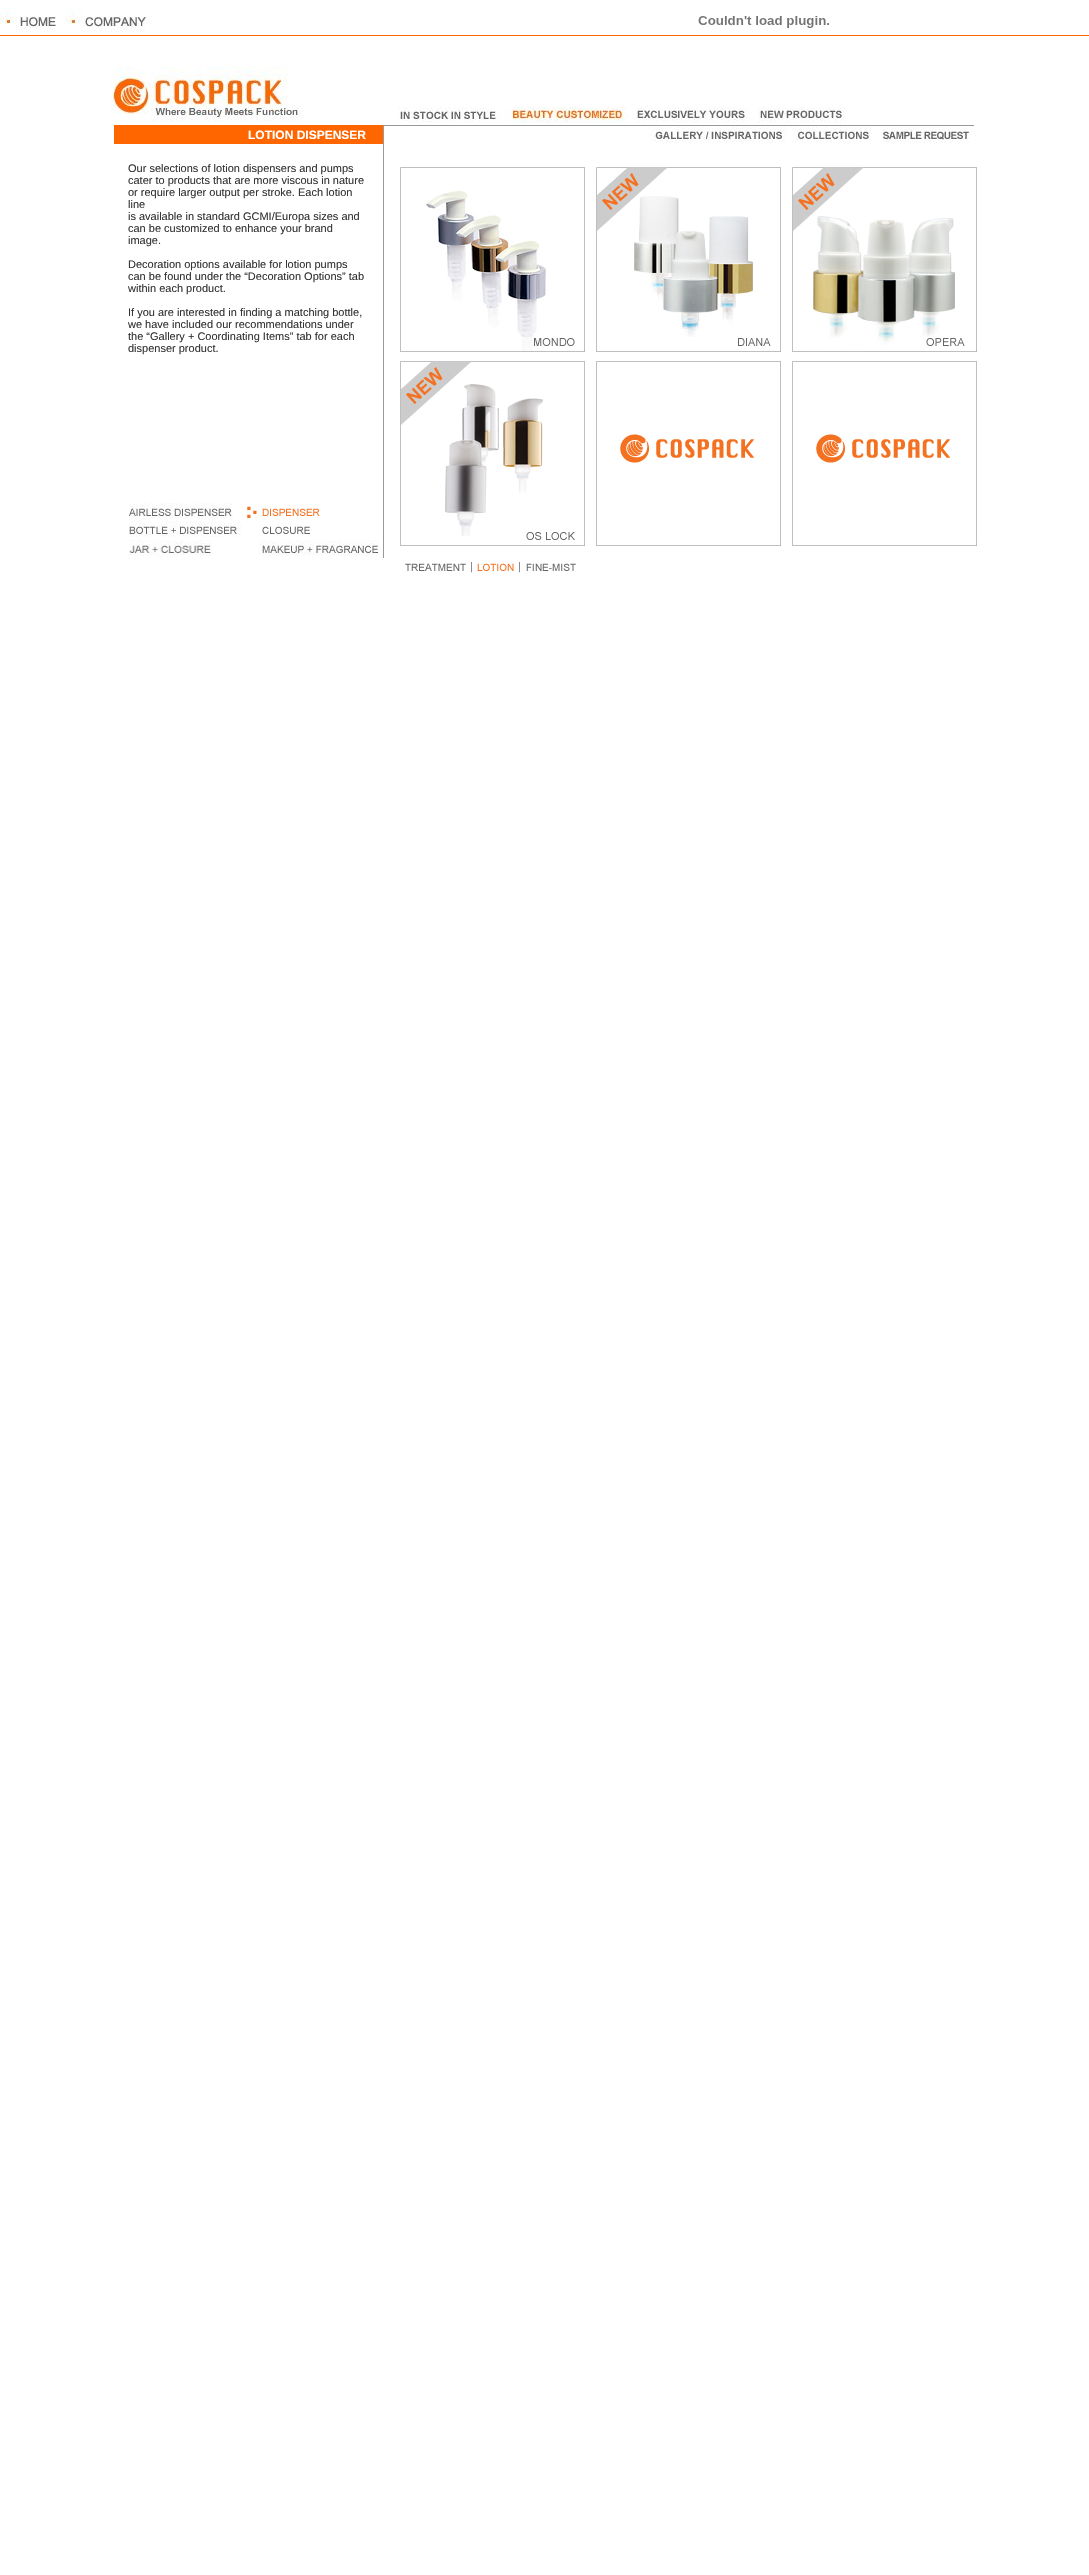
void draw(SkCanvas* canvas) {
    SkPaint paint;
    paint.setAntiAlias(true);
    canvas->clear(0xFFFFFFFF);
    canvas->drawImageRect(SkImages::DeferredFromEncodedData(SkData::MakeFromFileName("img1.png")), SkRect::MakeXYWH(0, 8, 56, 24), SkSamplingOptions());
    canvas->drawImageRect(SkImages::DeferredFromEncodedData(SkData::MakeFromFileName("img2.png")), SkRect::MakeXYWH(65, 8, 87, 24), SkSamplingOptions());
    canvas->drawImageRect(SkImages::DeferredFromEncodedData(SkData::MakeFromFileName("img3.png")), SkRect::MakeXYWH(698, 16, 131, 12), SkSamplingOptions());
    paint.setColor(0xFFFF6600);
    canvas->drawRect(SkRect::MakeXYWH(0, 35, 1089, 1), paint);
    canvas->drawImageRect(SkImages::DeferredFromEncodedData(SkData::MakeFromFileName("img4.png")), SkRect::MakeXYWH(110, 66, 193, 56), SkSamplingOptions());
    canvas->drawImageRect(SkImages::DeferredFromEncodedData(SkData::MakeFromFileName("img5.png")), SkRect::MakeXYWH(399, 107, 104, 16), SkSamplingOptions());
    canvas->drawImageRect(SkImages::DeferredFromEncodedData(SkData::MakeFromFileName("img6.png")), SkRect::MakeXYWH(505, 107, 123, 17), SkSamplingOptions());
    canvas->drawImageRect(SkImages::DeferredFromEncodedData(SkData::MakeFromFileName("img7.png")), SkRect::MakeXYWH(636, 107, 112, 16), SkSamplingOptions());
    canvas->drawImageRect(SkImages::DeferredFromEncodedData(SkData::MakeFromFileName("img8.png")), SkRect::MakeXYWH(758, 107, 88, 16), SkSamplingOptions());
    paint.setColor(0xFF999999);
    canvas->drawRect(SkRect::MakeXYWH(383, 125, 1, 433), paint);
    canvas->drawRect(SkRect::MakeXYWH(384, 125, 590, 1), paint);
    paint.setColor(0xFFFF6600);
    canvas->drawRect(SkRect::MakeXYWH(114, 125, 269, 19), paint);
    SkFont font1(fontMgr->matchFamilyStyle("Liberation Sans", SkFontStyle::Bold()), 12);
    font1.setSubpixel(true);
    paint.setColor(0xFFFFFFFF);
    canvas->drawString("LOTION DISPENSER", 248, 139, font1, paint);
    canvas->drawImageRect(SkImages::DeferredFromEncodedData(SkData::MakeFromFileName("img9.png")), SkRect::MakeXYWH(650, 127, 136, 16), SkSamplingOptions());
    canvas->drawImageRect(SkImages::DeferredFromEncodedData(SkData::MakeFromFileName("img10.png")), SkRect::MakeXYWH(791, 127, 80, 16), SkSamplingOptions());
    canvas->drawImageRect(SkImages::DeferredFromEncodedData(SkData::MakeFromFileName("img11.png")), SkRect::MakeXYWH(883, 127, 87, 16), SkSamplingOptions());
    SkFont font2(fontMgr->matchFamilyStyle("Liberation Sans", SkFontStyle::Normal()), 11);
    font2.setSubpixel(true);
    paint.setColor(0xFF333333);
    canvas->drawString("Our selections of lotion dispensers and pumps", 128, 172, font2, paint);
    canvas->drawString("cater to products that are more viscous in nature", 128, 184, font2, paint);
    canvas->drawString("or require larger output per stroke. Each lotion", 128, 196, font2, paint);
    canvas->drawString("line", 128, 208, font2, paint);
    canvas->drawString("is available in standard GCMI/Europa sizes and", 128, 220, font2, paint);
    canvas->drawString("can be customized to enhance your brand", 128, 232, font2, paint);
    canvas->drawString("image.", 128, 244, font2, paint);
    canvas->drawString("Decoration options available for lotion pumps", 128, 268, font2, paint);
    canvas->drawString("can be found under the “Decoration Options” tab", 128, 280, font2, paint);
    canvas->drawString("within each product.", 128, 292, font2, paint);
    canvas->drawString("If you are interested in finding a matching bottle,", 128, 316, font2, paint);
    canvas->drawString("we have included our recommendations under", 128, 328, font2, paint);
    canvas->drawString("the “Gallery + Coordinating Items” tab for each", 128, 340, font2, paint);
    canvas->drawString("dispenser product.", 128, 352, font2, paint);
    canvas->drawImageRect(SkImages::DeferredFromEncodedData(SkData::MakeFromFileName("img12.png")), SkRect::MakeXYWH(400, 167, 185, 185), SkSamplingOptions());
    canvas->drawImageRect(SkImages::DeferredFromEncodedData(SkData::MakeFromFileName("img13.png")), SkRect::MakeXYWH(596, 167, 185, 185), SkSamplingOptions());
    canvas->drawImageRect(SkImages::DeferredFromEncodedData(SkData::MakeFromFileName("img14.png")), SkRect::MakeXYWH(792, 167, 185, 185), SkSamplingOptions());
    canvas->drawImageRect(SkImages::DeferredFromEncodedData(SkData::MakeFromFileName("img15.png")), SkRect::MakeXYWH(400, 361, 185, 185), SkSamplingOptions());
    canvas->drawImageRect(SkImages::DeferredFromEncodedData(SkData::MakeFromFileName("img16.png")), SkRect::MakeXYWH(596, 361, 185, 185), SkSamplingOptions());
    canvas->drawImageRect(SkImages::DeferredFromEncodedData(SkData::MakeFromFileName("img16.png")), SkRect::MakeXYWH(792, 361, 185, 185), SkSamplingOptions());
    canvas->drawImageRect(SkImages::DeferredFromEncodedData(SkData::MakeFromFileName("img17.png")), SkRect::MakeXYWH(129, 503, 104, 16), SkSamplingOptions());
    canvas->drawImageRect(SkImages::DeferredFromEncodedData(SkData::MakeFromFileName("img18.png")), SkRect::MakeXYWH(247, 505, 73, 13), SkSamplingOptions());
    canvas->drawImageRect(SkImages::DeferredFromEncodedData(SkData::MakeFromFileName("img19.png")), SkRect::MakeXYWH(129, 521, 112, 16), SkSamplingOptions());
    canvas->drawImageRect(SkImages::DeferredFromEncodedData(SkData::MakeFromFileName("img20.png")), SkRect::MakeXYWH(262, 526, 48, 8), SkSamplingOptions());
    canvas->drawImageRect(SkImages::DeferredFromEncodedData(SkData::MakeFromFileName("img21.png")), SkRect::MakeXYWH(129, 540, 83, 16), SkSamplingOptions());
    canvas->drawImageRect(SkImages::DeferredFromEncodedData(SkData::MakeFromFileName("img22.png")), SkRect::MakeXYWH(259, 540, 120, 16), SkSamplingOptions());
    canvas->drawImageRect(SkImages::DeferredFromEncodedData(SkData::MakeFromFileName("img23.png")), SkRect::MakeXYWH(405, 562, 67, 11), SkSamplingOptions());
    canvas->drawImageRect(SkImages::DeferredFromEncodedData(SkData::MakeFromFileName("img24.png")), SkRect::MakeXYWH(477, 562, 43, 11), SkSamplingOptions());
    canvas->drawImageRect(SkImages::DeferredFromEncodedData(SkData::MakeFromFileName("img25.png")), SkRect::MakeXYWH(526, 563, 50, 8), SkSamplingOptions());
}
